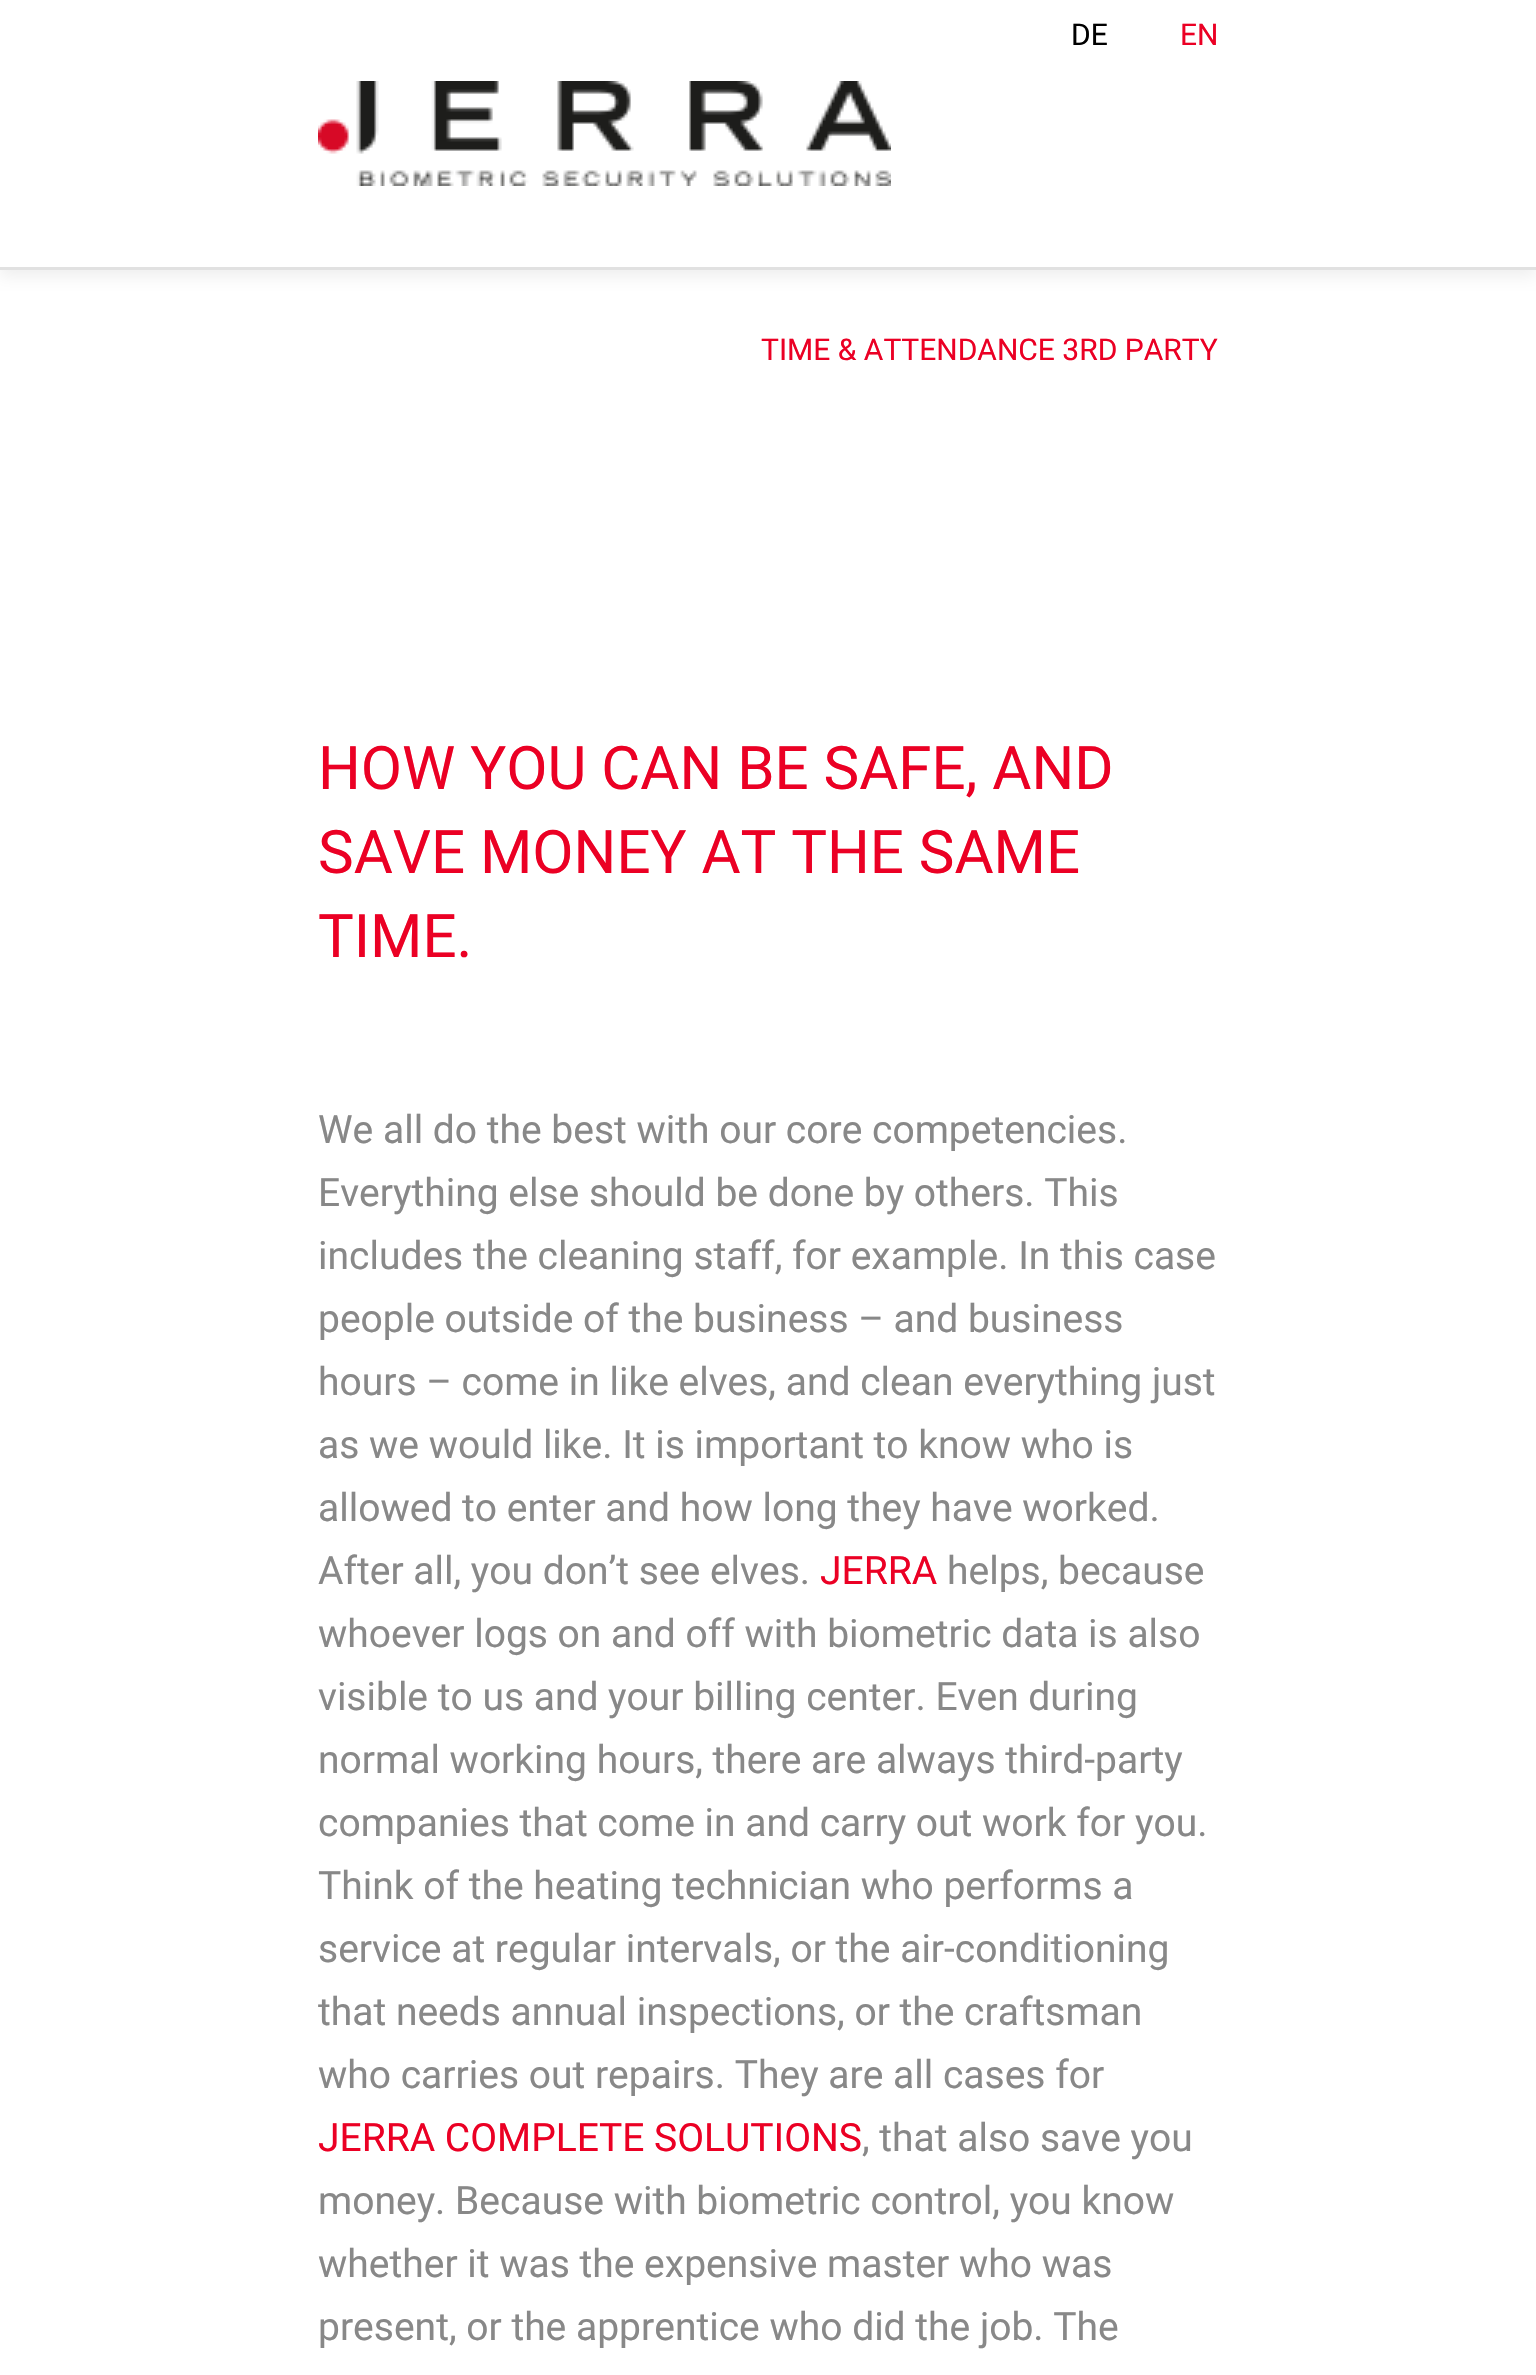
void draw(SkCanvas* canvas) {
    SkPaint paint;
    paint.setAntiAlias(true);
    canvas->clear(0xFFFFFFFF);
    canvas->save();
    canvas->clipRect(SkRect::MakeXYWH(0, 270, 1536, 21));
    paint.setColor(0xFFEEEEEE);
    paint.setMaskFilter(SkMaskFilter::MakeBlur(kNormal_SkBlurStyle, 7.5f));
    canvas->drawRect(SkRect::MakeXYWH(0, 6, 1536, 270), paint);
    paint.setMaskFilter(nullptr);
    canvas->restore();
    paint.setColor(0xFFE1E1E1);
    canvas->drawRect(SkRect::MakeXYWH(0, 267, 1536, 3), paint);
    SkFont font1(fontMgr->matchFamilyStyle("Roboto", SkFontStyle::Normal()), 30);
    font1.setSubpixel(true);
    paint.setColor(0xFF000000);
    canvas->drawString("DE", 1071, 45, font1, paint);
    paint.setColor(0xFFEB0024);
    canvas->drawString("EN", 1180, 45, font1, paint);
    canvas->drawImageRect(SkImages::DeferredFromEncodedData(SkData::MakeFromFileName("img1.png")), SkRect::MakeXYWH(318, 81, 573, 105), SkSamplingOptions());
    canvas->drawString("TIME & ATTENDANCE 3RD PARTY", 761, 360, font1, paint);
    SkFont font2(fontMgr->matchFamilyStyle("Roboto", SkFontStyle::Normal()), 60);
    font2.setSubpixel(true);
    canvas->drawString("HOW YOU CAN BE SAFE, AND", 318, 789, font2, paint);
    canvas->drawString("SAVE MONEY AT THE SAME", 318, 873, font2, paint);
    canvas->drawString("TIME.", 318, 957, font2, paint);
    SkFont font3(fontMgr->matchFamilyStyle("Roboto", SkFontStyle::Normal()), 39);
    font3.setSubpixel(true);
    paint.setColor(0xFF888888);
    canvas->drawString("We all do the best with our core competencies.", 318, 1143, font3, paint);
    canvas->drawString("Everything else should be done by others. This", 318, 1206, font3, paint);
    canvas->drawString("includes the cleaning staff, for example. In this case", 318, 1269, font3, paint);
    canvas->drawString("people outside of the business – and business", 318, 1332, font3, paint);
    canvas->drawString("hours – come in like elves, and clean everything just", 318, 1395, font3, paint);
    canvas->drawString("as we would like. It is important to know who is", 318, 1458, font3, paint);
    canvas->drawString("allowed to enter and how long they have worked.", 318, 1521, font3, paint);
    canvas->drawString("After all, you don’t see elves.", 318, 1584, font3, paint);
    paint.setColor(0xFFEB0024);
    canvas->drawString("JERRA", 820, 1584, font3, paint);
    paint.setColor(0xFF888888);
    canvas->drawString("helps, because", 947, 1584, font3, paint);
    canvas->drawString("whoever logs on and off with biometric data is also", 318, 1647, font3, paint);
    canvas->drawString("visible to us and your billing center. Even during", 318, 1710, font3, paint);
    canvas->drawString("normal working hours, there are always third-party", 318, 1773, font3, paint);
    canvas->drawString("companies that come in and carry out work for you.", 318, 1836, font3, paint);
    canvas->drawString("Think of the heating technician who performs a", 318, 1899, font3, paint);
    canvas->drawString("service at regular intervals, or the air-conditioning", 318, 1962, font3, paint);
    canvas->drawString("that needs annual inspections, or the craftsman", 318, 2025, font3, paint);
    canvas->drawString("who carries out repairs. They are all cases for", 318, 2088, font3, paint);
    paint.setColor(0xFFEB0024);
    canvas->drawString("JERRA COMPLETE SOLUTIONS", 318, 2151, font3, paint);
    paint.setColor(0xFF888888);
    canvas->drawString(", that also save you", 862, 2151, font3, paint);
    canvas->drawString("money. Because with biometric control, you know", 318, 2214, font3, paint);
    canvas->drawString("whether it was the expensive master who was", 318, 2277, font3, paint);
    canvas->drawString("present, or the apprentice who did the job. The", 318, 2340, font3, paint);
}
